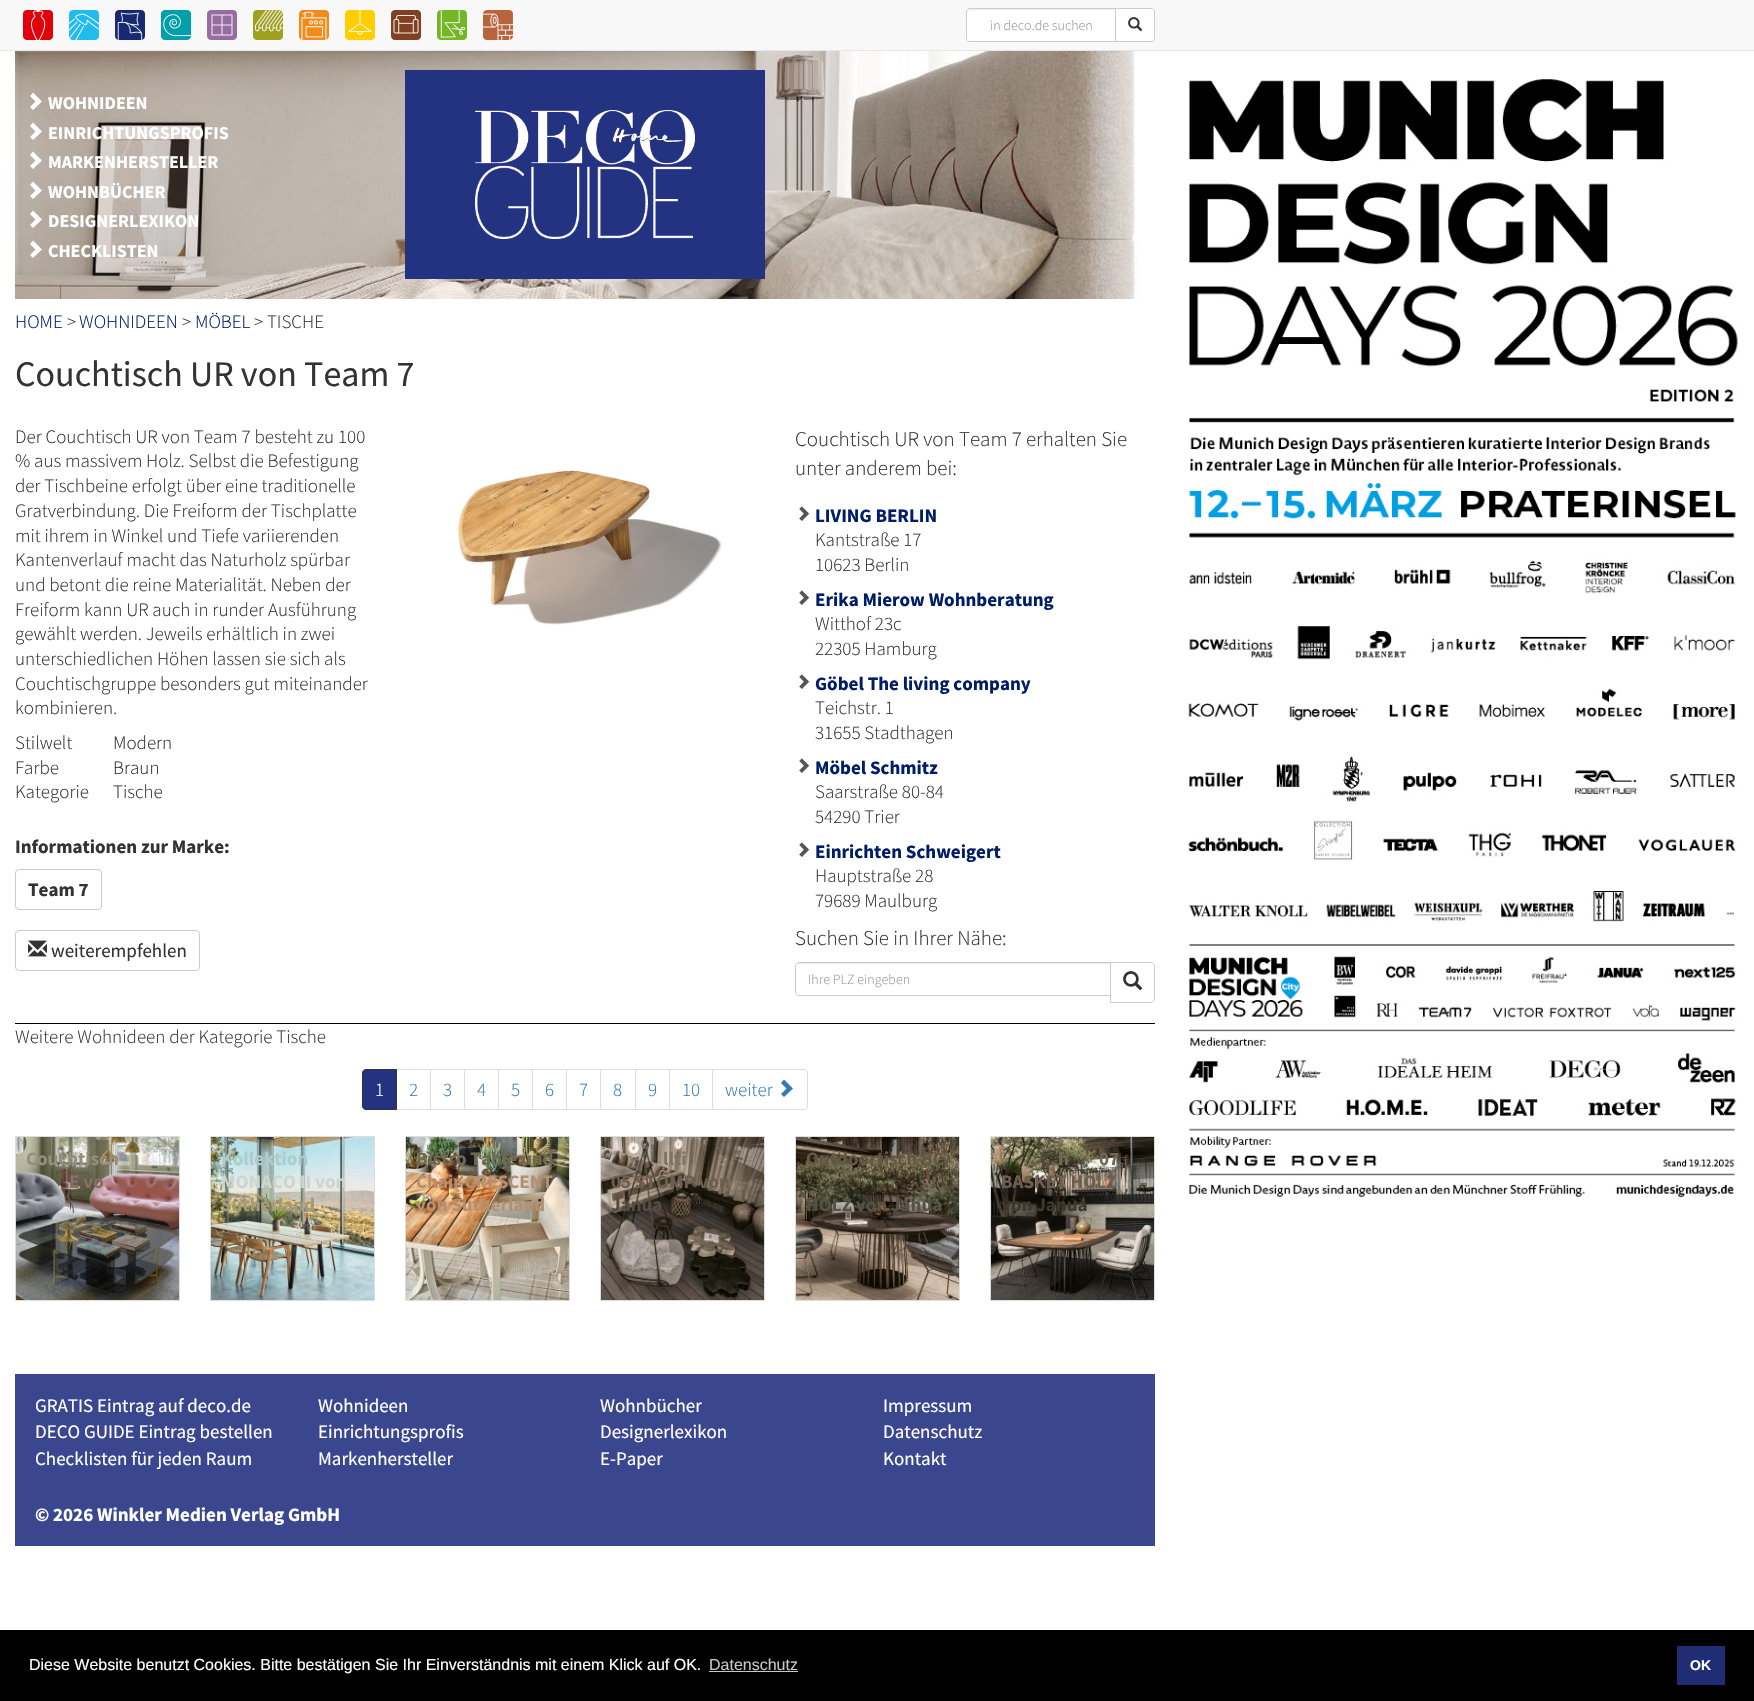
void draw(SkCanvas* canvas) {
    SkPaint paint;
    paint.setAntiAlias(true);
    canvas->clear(0xFFFFFFFF);
    paint.setColor(0xFFF8F8F8);
    canvas->drawRect(SkRect::MakeXYWH(0, 0, 1754, 50), paint);
    paint.setColor(0xFFE7E7E7);
    canvas->drawRect(SkRect::MakeXYWH(0, 50, 1754, 1), paint);
    canvas->drawImageRect(SkImages::DeferredFromEncodedData(SkData::MakeFromFileName("img1.png")), SkRect::MakeXYWH(23, 10, 30, 30), SkSamplingOptions());
    canvas->drawImageRect(SkImages::DeferredFromEncodedData(SkData::MakeFromFileName("img2.png")), SkRect::MakeXYWH(69, 10, 30, 30), SkSamplingOptions());
    canvas->drawImageRect(SkImages::DeferredFromEncodedData(SkData::MakeFromFileName("img3.png")), SkRect::MakeXYWH(115, 10, 30, 30), SkSamplingOptions());
    canvas->drawImageRect(SkImages::DeferredFromEncodedData(SkData::MakeFromFileName("img4.png")), SkRect::MakeXYWH(161, 10, 30, 30), SkSamplingOptions());
    canvas->drawImageRect(SkImages::DeferredFromEncodedData(SkData::MakeFromFileName("img5.png")), SkRect::MakeXYWH(207, 10, 30, 30), SkSamplingOptions());
    canvas->drawImageRect(SkImages::DeferredFromEncodedData(SkData::MakeFromFileName("img6.png")), SkRect::MakeXYWH(253, 10, 30, 30), SkSamplingOptions());
    canvas->drawImageRect(SkImages::DeferredFromEncodedData(SkData::MakeFromFileName("img7.png")), SkRect::MakeXYWH(299, 10, 30, 30), SkSamplingOptions());
    canvas->drawImageRect(SkImages::DeferredFromEncodedData(SkData::MakeFromFileName("img8.png")), SkRect::MakeXYWH(345, 10, 30, 30), SkSamplingOptions());
    canvas->drawImageRect(SkImages::DeferredFromEncodedData(SkData::MakeFromFileName("img9.png")), SkRect::MakeXYWH(391, 10, 30, 30), SkSamplingOptions());
    canvas->drawImageRect(SkImages::DeferredFromEncodedData(SkData::MakeFromFileName("img10.png")), SkRect::MakeXYWH(437, 10, 30, 30), SkSamplingOptions());
    canvas->drawImageRect(SkImages::DeferredFromEncodedData(SkData::MakeFromFileName("img11.png")), SkRect::MakeXYWH(483, 10, 30, 30), SkSamplingOptions());
    paint.setColor(0xFFFFFFFF);
    canvas->drawPath(SkPathBuilder().moveTo(970, 8).lineTo(1116, 8).lineTo(1116, 42).lineTo(970, 42).cubicTo(968, 42, 966, 40, 966, 38).lineTo(966, 12).cubicTo(966, 10, 968, 8, 970, 8).close().detach(), paint);
    paint.setColor(0xFFECECEC);
    canvas->drawPath(SkPathBuilder().moveTo(970, 10).lineTo(1115, 10).lineTo(1115, 9).lineTo(970, 9).cubicTo(968, 9, 967, 11, 967, 13).cubicTo(967, 11, 968, 10, 970, 10).close().detach(), paint);
    paint.setStyle(SkPaint::kStroke_Style);
    paint.setStrokeWidth(1);
    paint.setColor(0xFFCCCCCC);
    canvas->drawPath(SkPathBuilder().moveTo(970, 8.5f).lineTo(1115.5f, 8.5f).lineTo(1115.5f, 41.5f).lineTo(970, 41.5f).cubicTo(968, 41.5f, 966.5f, 40, 966.5f, 38).lineTo(966.5f, 12).cubicTo(966.5f, 10, 968, 8.5f, 970, 8.5f).close().detach(), paint);
    SkFont font1(fontMgr->matchFamilyStyle("Source Sans Pro", SkFontStyle(300, SkFontStyle::kNormal_Width, SkFontStyle::kUpright_Slant)), 14);
    font1.setSubpixel(true);
    paint.setStyle(SkPaint::kFill_Style);
    paint.setColor(0xFF999999);
    canvas->drawString("in deco.de suchen", 990, 30, font1, paint);
    paint.setColor(0xFFFFFFFF);
    canvas->drawPath(SkPathBuilder().moveTo(1115.5f, 8.5f).lineTo(1151, 8.5f).cubicTo(1153, 8.5f, 1154.5f, 10, 1154.5f, 12).lineTo(1154.5f, 38).cubicTo(1154.5f, 40, 1153, 41.5f, 1151, 41.5f).lineTo(1115.5f, 41.5f).close().detach(), paint);
    paint.setStyle(SkPaint::kStroke_Style);
    paint.setColor(0xFFCCCCCC);
    canvas->drawPath(SkPathBuilder().moveTo(1115.5f, 8.5f).lineTo(1151, 8.5f).cubicTo(1153, 8.5f, 1154.5f, 10, 1154.5f, 12).lineTo(1154.5f, 38).cubicTo(1154.5f, 40, 1153, 41.5f, 1151, 41.5f).lineTo(1115.5f, 41.5f).close().detach(), paint);
    canvas->drawImageRect(SkImages::DeferredFromEncodedData(SkData::MakeFromFileName("img12.png")), SkRect::MakeXYWH(1128, 17, 15, 14), SkSamplingOptions());
    canvas->drawImageRect(SkImages::DeferredFromEncodedData(SkData::MakeFromFileName("img13.png")), SkRect::MakeXYWH(15, 51, 1124, 248), SkSamplingOptions());
    paint.setStyle(SkPaint::kFill_Style);
    paint.setColor(0xFFFFFFFF);
    canvas->drawPath(SkPathBuilder().moveTo(42, 101.5f).lineTo(33, 110).lineTo(30, 107).lineTo(35.5f, 101.5f).lineTo(30, 96).lineTo(33, 92.5f).close().moveTo(42, 131.5f).lineTo(33, 140).lineTo(30, 137).lineTo(35.5f, 131.5f).lineTo(30, 126).lineTo(33, 122.5f).close().detach(), paint);
    SkFont font2(fontMgr->matchFamilyStyle("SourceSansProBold", SkFontStyle::Bold()), 18);
    font2.setSubpixel(true);
    canvas->drawString("WOHNIDEEN", 48, 109, font2, paint);
    canvas->drawString("EINRICHTUNGSPROFIS", 48, 139, font2, paint);
    canvas->drawPath(SkPathBuilder().moveTo(42, 160.5f).lineTo(33, 169).lineTo(30, 166).lineTo(35.5f, 160.5f).lineTo(30, 155).lineTo(33, 151.5f).close().moveTo(42, 190.5f).lineTo(33, 199).lineTo(30, 196).lineTo(35.5f, 190.5f).lineTo(30, 185).lineTo(33, 181.5f).close().detach(), paint);
    canvas->drawString("MARKENHERSTELLER", 48, 168, font2, paint);
    canvas->drawString("WOHNBÜCHER", 48, 198, font2, paint);
    canvas->drawPath(SkPathBuilder().moveTo(42, 219.5f).lineTo(33, 228).lineTo(30, 225).lineTo(35.5f, 219.5f).lineTo(30, 214).lineTo(33, 210.5f).close().moveTo(42, 249.5f).lineTo(33, 258).lineTo(30, 255).lineTo(35.5f, 249.5f).lineTo(30, 244).lineTo(33, 240.5f).close().detach(), paint);
    canvas->drawString("DESIGNERLEXIKON", 48, 227, font2, paint);
    canvas->drawString("CHECKLISTEN", 48, 257, font2, paint);
    paint.setColor(0xFF243282);
    canvas->drawRect(SkRect::MakeXYWH(405, 70, 360, 209), paint);
    canvas->drawImageRect(SkImages::DeferredFromEncodedData(SkData::MakeFromFileName("img14.png")), SkRect::MakeXYWH(475, 110, 220, 129), SkSamplingOptions());
    canvas->drawImageRect(SkImages::DeferredFromEncodedData(SkData::MakeFromFileName("img15.png")), SkRect::MakeXYWH(1188, 79, 550, 1119), SkSamplingOptions());
    SkFont font3(fontMgr->matchFamilyStyle("Source Sans Pro", SkFontStyle(300, SkFontStyle::kNormal_Width, SkFontStyle::kUpright_Slant)), 19);
    font3.setSubpixel(true);
    paint.setColor(0xFF001D68);
    canvas->drawString("HOME", 15, 328, font3, paint);
    paint.setColor(0xFF333333);
    canvas->drawString(">", 67, 328, font3, paint);
    paint.setColor(0xFF001D68);
    canvas->drawString("WOHNIDEEN", 79, 328, font3, paint);
    paint.setColor(0xFF333333);
    canvas->drawString(">", 182, 328, font3, paint);
    paint.setColor(0xFF001D68);
    canvas->drawString("MÖBEL", 195, 328, font3, paint);
    paint.setColor(0xFF333333);
    canvas->drawString("> TISCHE", 254, 328, font3, paint);
    SkFont font4(fontMgr->matchFamilyStyle("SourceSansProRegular", SkFontStyle::Normal()), 36);
    font4.setSubpixel(true);
    canvas->drawString("Couchtisch UR von Team 7", 15, 386, font4, paint);
    canvas->drawString("Der Couchtisch UR von Team 7 besteht zu 100", 15, 443, font3, paint);
    canvas->drawString("% aus massivem Holz. Selbst die Befestigung", 15, 467, font3, paint);
    canvas->drawString("der Tischbeine erfolgt über eine traditionelle", 15, 492, font3, paint);
    canvas->drawString("Gratverbindung. Die Freiform der Tischplatte", 15, 517, font3, paint);
    canvas->drawString("mit ihrem in Winkel und Tiefe variierenden", 15, 542, font3, paint);
    canvas->drawString("Kantenverlauf macht das Naturholz spürbar", 15, 566, font3, paint);
    canvas->drawString("und betont die reine Materialität. Neben der", 15, 591, font3, paint);
    canvas->drawString("Freiform kann UR auch in runder Ausführung", 15, 616, font3, paint);
    canvas->drawString("gewählt werden. Jeweils erhältlich in zwei", 15, 640, font3, paint);
    canvas->drawString("unterschiedlichen Höhen lassen sie sich als", 15, 665, font3, paint);
    canvas->drawString("Couchtischgruppe besonders gut miteinander", 15, 690, font3, paint);
    canvas->drawString("kombinieren.", 15, 714, font3, paint);
    canvas->drawString("Stilwelt", 15, 749, font3, paint);
    canvas->drawString("Farbe", 15, 774, font3, paint);
    canvas->drawString("Kategorie", 15, 798, font3, paint);
    canvas->drawString("Modern", 113, 749, font3, paint);
    canvas->drawString("Braun", 113, 774, font3, paint);
    canvas->drawString("Tische", 113, 798, font3, paint);
    SkFont font5(fontMgr->matchFamilyStyle("SourceSansProBold", SkFontStyle::Bold()), 19);
    font5.setSubpixel(true);
    canvas->drawString("Informationen zur Marke:", 15, 853, font5, paint);
    paint.setStyle(SkPaint::kStroke_Style);
    paint.setColor(0xFFCCCCCC);
    canvas->drawRoundRect(SkRect::MakeXYWH(15.5f, 869.5f, 86, 40), 3.5f, 3.5f, paint);
    paint.setStyle(SkPaint::kFill_Style);
    paint.setColor(0xFF333333);
    canvas->drawString("Team 7", 28, 896, font5, paint);
    paint.setStyle(SkPaint::kStroke_Style);
    paint.setColor(0xFFCCCCCC);
    canvas->drawRoundRect(SkRect::MakeXYWH(15.5f, 930.5f, 184, 40), 3.5f, 3.5f, paint);
    canvas->drawImageRect(SkImages::DeferredFromEncodedData(SkData::MakeFromFileName("img16.png")), SkRect::MakeXYWH(28, 940, 19, 17), SkSamplingOptions());
    SkFont font6(fontMgr->matchFamilyStyle("SourceSansProRegular", SkFontStyle::Normal()), 19);
    font6.setSubpixel(true);
    paint.setStyle(SkPaint::kFill_Style);
    paint.setColor(0xFF333333);
    canvas->drawString("weiterempfehlen", 51, 957, font6, paint);
    canvas->drawImageRect(SkImages::DeferredFromEncodedData(SkData::MakeFromFileName("img17.png")), SkRect::MakeXYWH(456, 469, 266, 156), SkSamplingOptions());
    SkFont font7(fontMgr->matchFamilyStyle("Source Sans Pro", SkFontStyle(300, SkFontStyle::kNormal_Width, SkFontStyle::kUpright_Slant)), 21);
    font7.setSubpixel(true);
    canvas->drawString("Couchtisch UR von Team 7 erhalten Sie", 795, 446, font7, paint);
    canvas->drawString("unter anderem bei:", 795, 475, font7, paint);
    canvas->drawImageRect(SkImages::DeferredFromEncodedData(SkData::MakeFromFileName("img18.png")), SkRect::MakeXYWH(799, 506, 11, 15), SkSamplingOptions());
    paint.setColor(0xFF001D68);
    canvas->drawString("LIVING BERLIN", 815, 522, font5, paint);
    paint.setColor(0xFF333333);
    canvas->drawString("Kantstraße 17", 815, 546, font3, paint);
    canvas->drawString("10623 Berlin", 815, 571, font3, paint);
    canvas->drawImageRect(SkImages::DeferredFromEncodedData(SkData::MakeFromFileName("img18.png")), SkRect::MakeXYWH(799, 590, 11, 15), SkSamplingOptions());
    paint.setColor(0xFF001D68);
    canvas->drawString("Erika Mierow Wohnberatung", 815, 606, font5, paint);
    paint.setColor(0xFF333333);
    canvas->drawString("Witthof 23c", 815, 630, font3, paint);
    canvas->drawString("22305 Hamburg", 815, 655, font3, paint);
    canvas->drawImageRect(SkImages::DeferredFromEncodedData(SkData::MakeFromFileName("img18.png")), SkRect::MakeXYWH(799, 674, 11, 15), SkSamplingOptions());
    paint.setColor(0xFF001D68);
    canvas->drawString("Göbel The living company", 815, 690, font5, paint);
    paint.setColor(0xFF333333);
    canvas->drawString("Teichstr. 1", 815, 714, font3, paint);
    canvas->drawString("31655 Stadthagen", 815, 739, font3, paint);
    canvas->drawImageRect(SkImages::DeferredFromEncodedData(SkData::MakeFromFileName("img18.png")), SkRect::MakeXYWH(799, 758, 11, 15), SkSamplingOptions());
    paint.setColor(0xFF001D68);
    canvas->drawString("Möbel Schmitz", 815, 774, font5, paint);
    paint.setColor(0xFF333333);
    canvas->drawString("Saarstraße 80-84", 815, 798, font3, paint);
    canvas->drawString("54290 Trier", 815, 823, font3, paint);
    canvas->drawImageRect(SkImages::DeferredFromEncodedData(SkData::MakeFromFileName("img18.png")), SkRect::MakeXYWH(799, 842, 11, 15), SkSamplingOptions());
    paint.setColor(0xFF001D68);
    canvas->drawString("Einrichten Schweigert", 815, 858, font5, paint);
    paint.setColor(0xFF333333);
    canvas->drawString("Hauptstraße 28", 815, 882, font3, paint);
    canvas->drawString("79689 Maulburg", 815, 907, font3, paint);
    canvas->drawString("Suchen Sie in Ihrer Nähe:", 795, 945, font7, paint);
    paint.setColor(0xFFECECEC);
    canvas->drawPath(SkPathBuilder().moveTo(799, 964).lineTo(1110, 964).lineTo(1110, 963).lineTo(799, 963).cubicTo(797, 963, 796, 965, 796, 967).cubicTo(796, 965, 797, 964, 799, 964).close().detach(), paint);
    paint.setStyle(SkPaint::kStroke_Style);
    paint.setColor(0xFFCCCCCC);
    canvas->drawPath(SkPathBuilder().moveTo(799, 962.5f).lineTo(1110.5f, 962.5f).lineTo(1110.5f, 995.5f).lineTo(799, 995.5f).cubicTo(797, 995.5f, 795.5f, 994, 795.5f, 992).lineTo(795.5f, 966).cubicTo(795.5f, 964, 797, 962.5f, 799, 962.5f).close().detach(), paint);
    paint.setStyle(SkPaint::kFill_Style);
    paint.setColor(0xFF999999);
    canvas->drawString("Ihre PLZ eingeben", 808, 984, font1, paint);
    paint.setColor(0xFFFFFFFF);
    canvas->drawPath(SkPathBuilder().moveTo(1110.5f, 962.5f).lineTo(1151, 962.5f).cubicTo(1153, 962.5f, 1154.5f, 964, 1154.5f, 966).lineTo(1154.5f, 999).cubicTo(1154.5f, 1001, 1153, 1002.5f, 1151, 1002.5f).lineTo(1110.5f, 1002.5f).close().detach(), paint);
    paint.setStyle(SkPaint::kStroke_Style);
    paint.setColor(0xFFCCCCCC);
    canvas->drawPath(SkPathBuilder().moveTo(1110.5f, 962.5f).lineTo(1151, 962.5f).cubicTo(1153, 962.5f, 1154.5f, 964, 1154.5f, 966).lineTo(1154.5f, 999).cubicTo(1154.5f, 1001, 1153, 1002.5f, 1151, 1002.5f).lineTo(1110.5f, 1002.5f).close().detach(), paint);
    canvas->drawImageRect(SkImages::DeferredFromEncodedData(SkData::MakeFromFileName("img19.png")), SkRect::MakeXYWH(1123, 971, 20, 20), SkSamplingOptions());
    paint.setStyle(SkPaint::kFill_Style);
    paint.setColor(0xFF000000);
    canvas->drawRect(SkRect::MakeXYWH(15, 1023, 1140, 1), paint);
    paint.setColor(0xFF333333);
    canvas->drawString("Weitere Wohnideen der Kategorie Tische", 15, 1043, font3, paint);
    paint.setStyle(SkPaint::kStroke_Style);
    paint.setColor(0xFFDDDDDD);
    canvas->drawRect(SkRect::MakeXYWH(396.5f, 1069.5f, 34, 40), paint);
    paint.setStyle(SkPaint::kFill_Style);
    paint.setColor(0xFF243282);
    canvas->drawPath(SkPathBuilder().moveTo(366, 1069.5f).lineTo(396.5f, 1069.5f).lineTo(396.5f, 1109.5f).lineTo(366, 1109.5f).cubicTo(364, 1109.5f, 362.5f, 1108, 362.5f, 1106).lineTo(362.5f, 1073).cubicTo(362.5f, 1071, 364, 1069.5f, 366, 1069.5f).close().detach(), paint);
    paint.setStyle(SkPaint::kStroke_Style);
    paint.setColor(0xFF333333);
    canvas->drawPath(SkPathBuilder().moveTo(366, 1069.5f).lineTo(396.5f, 1069.5f).lineTo(396.5f, 1109.5f).lineTo(366, 1109.5f).cubicTo(364, 1109.5f, 362.5f, 1108, 362.5f, 1106).lineTo(362.5f, 1073).cubicTo(362.5f, 1071, 364, 1069.5f, 366, 1069.5f).close().detach(), paint);
    paint.setStyle(SkPaint::kFill_Style);
    paint.setColor(0xFFFFFFFF);
    canvas->drawString("1", 375, 1096, font3, paint);
    paint.setColor(0xFF337AB7);
    canvas->drawString("2", 409, 1096, font3, paint);
    paint.setStyle(SkPaint::kStroke_Style);
    paint.setColor(0xFFDDDDDD);
    canvas->drawRect(SkRect::MakeXYWH(430.5f, 1069.5f, 34, 40), paint);
    paint.setStyle(SkPaint::kFill_Style);
    paint.setColor(0xFF337AB7);
    canvas->drawString("3", 443, 1096, font3, paint);
    paint.setStyle(SkPaint::kStroke_Style);
    paint.setColor(0xFFDDDDDD);
    canvas->drawRect(SkRect::MakeXYWH(464.5f, 1069.5f, 34, 40), paint);
    paint.setStyle(SkPaint::kFill_Style);
    paint.setColor(0xFF337AB7);
    canvas->drawString("4", 477, 1096, font3, paint);
    paint.setStyle(SkPaint::kStroke_Style);
    paint.setColor(0xFFDDDDDD);
    canvas->drawRect(SkRect::MakeXYWH(498.5f, 1069.5f, 34, 40), paint);
    paint.setStyle(SkPaint::kFill_Style);
    paint.setColor(0xFF337AB7);
    canvas->drawString("5", 511, 1096, font3, paint);
    paint.setStyle(SkPaint::kStroke_Style);
    paint.setColor(0xFFDDDDDD);
    canvas->drawRect(SkRect::MakeXYWH(532.5f, 1069.5f, 34, 40), paint);
    paint.setStyle(SkPaint::kFill_Style);
    paint.setColor(0xFF337AB7);
    canvas->drawString("6", 545, 1096, font3, paint);
    paint.setStyle(SkPaint::kStroke_Style);
    paint.setColor(0xFFDDDDDD);
    canvas->drawRect(SkRect::MakeXYWH(566.5f, 1069.5f, 34, 40), paint);
    paint.setStyle(SkPaint::kFill_Style);
    paint.setColor(0xFF337AB7);
    canvas->drawString("7", 579, 1096, font3, paint);
    paint.setStyle(SkPaint::kStroke_Style);
    paint.setColor(0xFFDDDDDD);
    canvas->drawRect(SkRect::MakeXYWH(600.5f, 1069.5f, 35, 40), paint);
    paint.setStyle(SkPaint::kFill_Style);
    paint.setColor(0xFF337AB7);
    canvas->drawString("8", 613, 1096, font3, paint);
    paint.setStyle(SkPaint::kStroke_Style);
    paint.setColor(0xFFDDDDDD);
    canvas->drawRect(SkRect::MakeXYWH(635.5f, 1069.5f, 34, 40), paint);
    paint.setStyle(SkPaint::kFill_Style);
    paint.setColor(0xFF337AB7);
    canvas->drawString("9", 648, 1096, font3, paint);
    paint.setStyle(SkPaint::kStroke_Style);
    paint.setColor(0xFFDDDDDD);
    canvas->drawRect(SkRect::MakeXYWH(669.5f, 1069.5f, 43, 40), paint);
    paint.setStyle(SkPaint::kFill_Style);
    paint.setColor(0xFF337AB7);
    canvas->drawString("10", 682, 1096, font3, paint);
    paint.setColor(0xFFFFFFFF);
    canvas->drawPath(SkPathBuilder().moveTo(712.5f, 1069.5f).lineTo(804, 1069.5f).cubicTo(806, 1069.5f, 807.5f, 1071, 807.5f, 1073).lineTo(807.5f, 1106).cubicTo(807.5f, 1108, 806, 1109.5f, 804, 1109.5f).lineTo(712.5f, 1109.5f).close().detach(), paint);
    paint.setStyle(SkPaint::kStroke_Style);
    paint.setColor(0xFFDDDDDD);
    canvas->drawPath(SkPathBuilder().moveTo(712.5f, 1069.5f).lineTo(804, 1069.5f).cubicTo(806, 1069.5f, 807.5f, 1071, 807.5f, 1073).lineTo(807.5f, 1106).cubicTo(807.5f, 1108, 806, 1109.5f, 804, 1109.5f).lineTo(712.5f, 1109.5f).close().detach(), paint);
    paint.setStyle(SkPaint::kFill_Style);
    paint.setColor(0xFF337AB7);
    canvas->drawString("weiter", 725, 1096, font3, paint);
    canvas->drawPath(SkPathBuilder().moveTo(793, 1088.5f).lineTo(784, 1097).lineTo(781, 1094).lineTo(786.5f, 1088.5f).lineTo(781, 1083).lineTo(784, 1079.5f).close().detach(), paint);
    canvas->drawImageRect(SkImages::DeferredFromEncodedData(SkData::MakeFromFileName("img20.png")), SkRect::MakeXYWH(16, 1137, 163, 163), SkSamplingOptions());
    paint.setStyle(SkPaint::kStroke_Style);
    paint.setColor(0xFFDDDDDD);
    canvas->drawRect(SkRect::MakeXYWH(15.5f, 1136.5f, 164, 164), paint);
    paint.setStyle(SkPaint::kFill_Style);
    paint.setColor(0xFF928F7B);
    canvas->drawString("Couchtisch", 26, 1165, font5, paint);
    paint.setColor(0xFF896D68);
    canvas->drawString("E vo", 69, 1188, font5, paint);
    canvas->drawImageRect(SkImages::DeferredFromEncodedData(SkData::MakeFromFileName("img21.png")), SkRect::MakeXYWH(211, 1137, 163, 163), SkSamplingOptions());
    paint.setStyle(SkPaint::kStroke_Style);
    paint.setColor(0xFFDDDDDD);
    canvas->drawRect(SkRect::MakeXYWH(210.5f, 1136.5f, 164, 164), paint);
    paint.setStyle(SkPaint::kFill_Style);
    paint.setColor(0xFFAECCCD);
    canvas->drawString("Kollektion", 221, 1165, font5, paint);
    paint.setColor(0xFFCCD6D1);
    canvas->drawString("MONACO II von", 221, 1188, font5, paint);
    paint.setColor(0xFFA39C75);
    canvas->drawString("Sutherland", 221, 1211, font5, paint);
    canvas->drawImageRect(SkImages::DeferredFromEncodedData(SkData::MakeFromFileName("img22.png")), SkRect::MakeXYWH(406, 1137, 163, 163), SkSamplingOptions());
    paint.setStyle(SkPaint::kStroke_Style);
    paint.setColor(0xFFDDDDDD);
    canvas->drawRect(SkRect::MakeXYWH(405.5f, 1136.5f, 164, 164), paint);
    paint.setStyle(SkPaint::kFill_Style);
    paint.setColor(0xFF6F6B52);
    canvas->drawString("Bistro Table und", 416, 1165, font5, paint);
    paint.setColor(0xFFB49071);
    canvas->drawString("Chair CRESCENT", 416, 1188, font5, paint);
    canvas->drawString("von Sutherland", 416, 1211, font5, paint);
    canvas->drawImageRect(SkImages::DeferredFromEncodedData(SkData::MakeFromFileName("img23.png")), SkRect::MakeXYWH(601, 1137, 163, 163), SkSamplingOptions());
    paint.setStyle(SkPaint::kStroke_Style);
    paint.setColor(0xFFDDDDDD);
    canvas->drawRect(SkRect::MakeXYWH(600.5f, 1136.5f, 164, 164), paint);
    paint.setStyle(SkPaint::kFill_Style);
    paint.setColor(0xFF7F7264);
    canvas->drawString("llti", 663, 1165, font5, paint);
    paint.setColor(0xFF6C5F4F);
    canvas->drawString("05 STOMP von", 611, 1188, font5, paint);
    paint.setColor(0xFF544C42);
    canvas->drawString("Janua", 611, 1211, font5, paint);
    canvas->drawImageRect(SkImages::DeferredFromEncodedData(SkData::MakeFromFileName("img24.png")), SkRect::MakeXYWH(796, 1137, 163, 163), SkSamplingOptions());
    paint.setStyle(SkPaint::kStroke_Style);
    paint.setColor(0xFFDDDDDD);
    canvas->drawRect(SkRect::MakeXYWH(795.5f, 1136.5f, 164, 164), paint);
    paint.setStyle(SkPaint::kFill_Style);
    paint.setColor(0xFF635843);
    canvas->drawString("Outdoortisch BC", 806, 1165, font5, paint);
    paint.setColor(0xFF575244);
    canvas->drawString("HOLZ von Janua", 806, 1211, font5, paint);
    canvas->drawImageRect(SkImages::DeferredFromEncodedData(SkData::MakeFromFileName("img25.png")), SkRect::MakeXYWH(991, 1137, 163, 163), SkSamplingOptions());
    paint.setStyle(SkPaint::kStroke_Style);
    paint.setColor(0xFFDDDDDD);
    canvas->drawRect(SkRect::MakeXYWH(990.5f, 1136.5f, 164, 164), paint);
    paint.setStyle(SkPaint::kFill_Style);
    paint.setColor(0xFF6F6B52);
    canvas->drawString("h", 1058, 1165, font5, paint);
    canvas->drawString("07", 1099, 1165, font5, paint);
    paint.setColor(0xFF6C5F4F);
    canvas->drawString("BASKET HOLZ", 1001, 1188, font5, paint);
    paint.setColor(0xFF3C382E);
    canvas->drawString("von Janua", 1001, 1211, font5, paint);
    paint.setColor(0xFF3A478F);
    canvas->drawRect(SkRect::MakeXYWH(15, 1374, 1140, 172), paint);
    paint.setColor(0xFFFFFFFF);
    canvas->drawString("GRATIS Eintrag auf deco.de", 35, 1412, font6, paint);
    canvas->drawString("DECO GUIDE Eintrag bestellen", 35, 1438, font6, paint);
    canvas->drawString("Checklisten für jeden Raum", 35, 1465, font6, paint);
    canvas->drawString("Wohnideen", 318, 1412, font6, paint);
    canvas->drawString("Einrichtungsprofis", 318, 1438, font6, paint);
    canvas->drawString("Markenhersteller", 318, 1465, font6, paint);
    canvas->drawString("Wohnbücher", 600, 1412, font6, paint);
    canvas->drawString("Designerlexikon", 600, 1438, font6, paint);
    canvas->drawString("E-Paper", 600, 1465, font6, paint);
    canvas->drawString("Impressum", 883, 1412, font6, paint);
    canvas->drawString("Datenschutz", 883, 1438, font6, paint);
    canvas->drawString("Kontakt", 883, 1465, font6, paint);
    canvas->drawString("© 2026 Winkler Medien Verlag GmbH", 35, 1521, font5, paint);
    paint.setColor(0xFF000000);
    canvas->drawRect(SkRect::MakeXYWH(0, 1630, 1754, 71), paint);
    SkFont font8(fontMgr->matchFamilyStyle("Liberation Sans", SkFontStyle::Normal()), 16);
    font8.setSubpixel(true);
    paint.setColor(0xFFFFFFFF);
    canvas->drawString("Diese Website benutzt Cookies. Bitte bestätigen Sie Ihr Einverständnis mit einem Klick auf OK.", 29, 1670, font8, paint);
    paint.setColor(0xFFC8C8C8);
    canvas->drawString("Datenschutz", 709, 1670, font8, paint);
    canvas->drawRect(SkRect::MakeXYWH(709, 1671, 89, 1), paint);
    paint.setColor(0xFF202D75);
    canvas->drawRect(SkRect::MakeXYWH(1677, 1646, 48, 39), paint);
    SkFont font9(fontMgr->matchFamilyStyle("Liberation Sans", SkFontStyle::Bold()), 14);
    font9.setSubpixel(true);
    paint.setColor(0xFFFFFFFF);
    canvas->drawString("OK", 1690, 1670, font9, paint);
}
